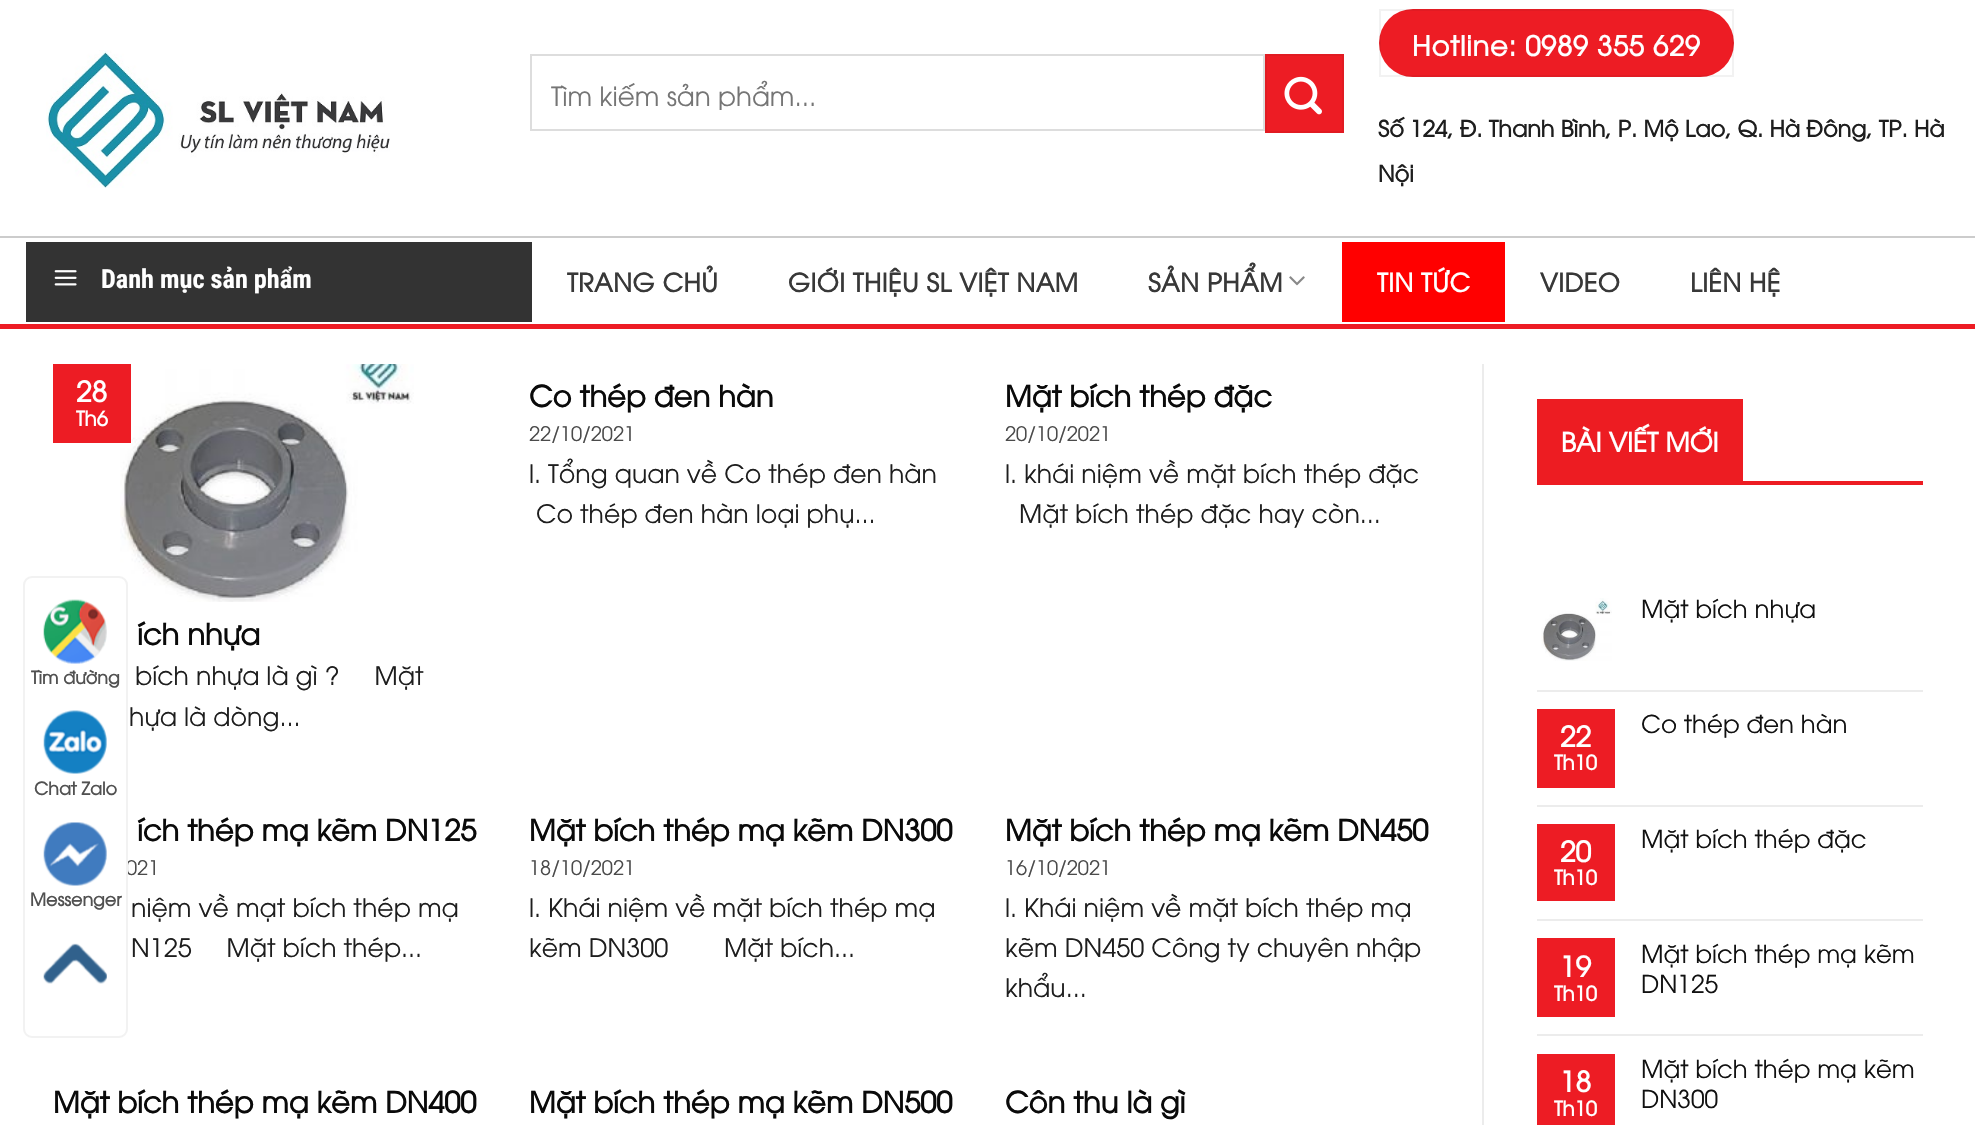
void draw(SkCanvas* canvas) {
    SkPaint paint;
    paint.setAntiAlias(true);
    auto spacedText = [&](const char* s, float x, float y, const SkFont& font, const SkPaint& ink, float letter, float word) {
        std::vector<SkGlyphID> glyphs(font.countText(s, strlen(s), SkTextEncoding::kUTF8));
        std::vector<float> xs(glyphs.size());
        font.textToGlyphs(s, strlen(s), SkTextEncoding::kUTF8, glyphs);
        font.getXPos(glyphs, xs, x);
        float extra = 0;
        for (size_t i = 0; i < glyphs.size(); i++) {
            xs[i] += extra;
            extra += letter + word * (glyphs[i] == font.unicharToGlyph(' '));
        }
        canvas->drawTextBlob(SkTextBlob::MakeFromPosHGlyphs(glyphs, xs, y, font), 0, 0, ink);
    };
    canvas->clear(0xFFFFFFFF);
    canvas->drawImageRect(SkImages::DeferredFromEncodedData(SkData::MakeFromFileName("img1.png")), SkRect::MakeXYWH(46, 50, 344, 138), SkSamplingOptions());
    paint.setStyle(SkPaint::kStroke_Style);
    paint.setStrokeWidth(2);
    paint.setColor(0xFFDDDDDD);
    canvas->drawRect(SkRect::MakeXYWH(531, 55, 733, 75), paint);
    canvas->save();
    canvas->clipRect(SkRect::MakeXYWH(551, 75, 685, 35));
    SkFont font1(fontMgr->matchFamilyStyle("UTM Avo", SkFontStyle::Normal()), 26.25f);
    font1.setSubpixel(true);
    paint.setStyle(SkPaint::kFill_Style);
    paint.setColor(0xFF757575);
    canvas->drawString("Tìm kiếm sản phẩm...", 551, 106, font1, paint);
    canvas->restore();
    paint.setColor(0xFFED1C24);
    canvas->drawRect(SkRect::MakeXYWH(1266, 55, 77, 77), paint);
    paint.setStyle(SkPaint::kStroke_Style);
    paint.setColor(0xFFE11B22);
    canvas->drawRect(SkRect::MakeXYWH(1266, 55, 77, 77), paint);
    canvas->drawImageRect(SkImages::DeferredFromEncodedData(SkData::MakeFromFileName("img2.png")), SkRect::MakeXYWH(1284, 76, 38, 39), SkSamplingOptions());
    paint.setStyle(SkPaint::kFill_Style);
    paint.setColor(0xFFED1C24);
    canvas->drawRoundRect(SkRect::MakeXYWH(1379, 9, 355, 68), 34, 34, paint);
    paint.setStyle(SkPaint::kStroke_Style);
    paint.setColor(0x0D000000);
    canvas->drawRect(SkRect::MakeXYWH(1380, 10, 353, 66), paint);
    SkFont font2(fontMgr->matchFamilyStyle("UTM Avo", SkFontStyle::Bold()), 27.25f);
    font2.setSubpixel(true);
    paint.setStyle(SkPaint::kFill_Style);
    paint.setColor(0xFFFFFFFF);
    spacedText("Hotline: 0989 355 629", 1412, 56, font2, paint, 0.8f, 0);
    SkFont font3(fontMgr->matchFamilyStyle("UTM Avo", SkFontStyle::Bold()), 22.4f);
    font3.setSubpixel(true);
    paint.setColor(0xFF1E1E1E);
    canvas->drawString("Số 124, Đ. Thanh Bình, P. Mộ Lao, Q. Hà Đông, TP. Hà", 1378, 137, font3, paint);
    canvas->drawString("Nội", 1378, 182, font3, paint);
    paint.setColor(0xFFCCCCCC);
    canvas->drawRect(SkRect::MakeXYWH(0, 236, 1975, 2), paint);
    paint.setColor(0xFFED1C24);
    canvas->drawRect(SkRect::MakeXYWH(0, 324, 1975, 5), paint);
    paint.setColor(0xFF333333);
    canvas->drawRect(SkRect::MakeXYWH(26, 242, 506, 80), paint);
    canvas->drawImageRect(SkImages::DeferredFromEncodedData(SkData::MakeFromFileName("img3.png")), SkRect::MakeXYWH(54, 270, 23, 16), SkSamplingOptions());
    SkFont font4(fontMgr->matchFamilyStyle("Roboto Condensed", SkFontStyle::Bold()), 26.25f);
    font4.setSubpixel(true);
    paint.setColor(0xFFFFFFFF);
    canvas->drawString("Danh mục sản phẩm", 101, 288, font4, paint);
    SkFont font5(fontMgr->matchFamilyStyle("UTM Avo", SkFontStyle::Bold()), 25.25f);
    font5.setSubpixel(true);
    paint.setColor(0xFF383838);
    spacedText("TRANG CHỦ", 567, 292, font5, paint, 0.5f, 0);
    spacedText("GIỚI THIỆU SL VIỆT NAM", 788, 292, font5, paint, 0.5f, 0);
    spacedText("SẢN PHẨM", 1148, 292, font5, paint, 0.5f, 0);
    canvas->drawImageRect(SkImages::DeferredFromEncodedData(SkData::MakeFromFileName("img4.png")), SkRect::MakeXYWH(1289, 276, 16, 10), SkSamplingOptions());
    paint.setColor(0xFFFF0000);
    canvas->drawRect(SkRect::MakeXYWH(1342, 242, 163, 80), paint);
    paint.setColor(0xFFFFFFFF);
    spacedText("TIN TỨC", 1377, 292, font5, paint, 0.5f, 0);
    paint.setColor(0xFF383838);
    spacedText("VIDEO", 1540, 292, font5, paint, 0.5f, 0);
    spacedText("LIÊN HỆ", 1690, 292, font5, paint, 0.5f, 0);
    canvas->drawImageRect(SkImages::DeferredFromEncodedData(SkData::MakeFromFileName("img5.png")), SkRect::MakeXYWH(120, 364, 294, 238), SkSamplingOptions());
    paint.setColor(0xFFED1C24);
    canvas->drawRect(SkRect::MakeXYWH(53, 364, 78, 79), paint);
    SkFont font6(fontMgr->matchFamilyStyle("UTM Avo", SkFontStyle::Bold()), 28);
    font6.setSubpixel(true);
    paint.setColor(0xFFFFFFFF);
    canvas->drawString("28", 76, 402, font6, paint);
    SkFont font7(fontMgr->matchFamilyStyle("UTM Avo", SkFontStyle::Bold()), 20);
    font7.setSubpixel(true);
    canvas->drawString("Th6", 76, 426, font7, paint);
    SkFont font8(fontMgr->matchFamilyStyle("UTM Avo", SkFontStyle::Bold()), 29);
    font8.setSubpixel(true);
    paint.setColor(0xFF0A0A0A);
    canvas->drawString("ích nhựa", 137, 645, font8, paint);
    SkFont font9(fontMgr->matchFamilyStyle("UTM Avo", SkFontStyle::Normal()), 25.25f);
    font9.setSubpixel(true);
    paint.setColor(0xFF1E1E1E);
    canvas->drawString("bích nhựa là gì ?     Mặt", 135, 685, font9, paint);
    canvas->drawString("hựa là dòng...", 129, 726, font9, paint);
    paint.setColor(0xFF0A0A0A);
    canvas->drawString("Co thép đen hàn", 529, 407, font8, paint);
    SkFont font10(fontMgr->matchFamilyStyle("UTM Avo", SkFontStyle::Normal()), 20);
    font10.setSubpixel(true);
    paint.setColor(0xFF4B4B4B);
    canvas->drawString("22/10/2021", 529, 441, font10, paint);
    paint.setColor(0xFF1E1E1E);
    canvas->drawString("l. Tổng quan về Co thép đen hàn", 529, 483, font9, paint);
    canvas->drawString("Co thép đen hàn loại phụ...", 536, 523, font9, paint);
    paint.setColor(0xFF0A0A0A);
    canvas->drawString("Mặt bích thép đặc", 1005, 407, font8, paint);
    paint.setColor(0xFF4B4B4B);
    canvas->drawString("20/10/2021", 1005, 441, font10, paint);
    paint.setColor(0xFF1E1E1E);
    canvas->drawString("l. khái niệm về mặt bích thép đặc", 1005, 483, font9, paint);
    canvas->drawString("Mặt bích thép đặc hay còn...", 1019, 523, font9, paint);
    paint.setColor(0xFF0A0A0A);
    canvas->drawString("ích thép mạ kẽm DN125", 137, 841, font8, paint);
    paint.setColor(0xFF4B4B4B);
    canvas->drawString("021", 126, 875, font10, paint);
    paint.setColor(0xFF1E1E1E);
    canvas->drawString("niệm về mạt bích thép mạ", 131, 917, font9, paint);
    canvas->drawString("N125     Mặt bích thép...", 131, 957, font9, paint);
    paint.setColor(0xFF0A0A0A);
    canvas->drawString("Mặt bích thép mạ kẽm DN300", 529, 841, font8, paint);
    paint.setColor(0xFF4B4B4B);
    canvas->drawString("18/10/2021", 529, 875, font10, paint);
    paint.setColor(0xFF1E1E1E);
    canvas->drawString("l. Khái niệm về mặt bích thép mạ", 529, 917, font9, paint);
    canvas->drawString("kẽm DN300        Mặt bích...", 529, 957, font9, paint);
    paint.setColor(0xFF0A0A0A);
    canvas->drawString("Mặt bích thép mạ kẽm DN450", 1005, 841, font8, paint);
    paint.setColor(0xFF4B4B4B);
    canvas->drawString("16/10/2021", 1005, 875, font10, paint);
    paint.setColor(0xFF1E1E1E);
    canvas->drawString("l. Khái niệm về mặt bích thép mạ", 1005, 917, font9, paint);
    canvas->drawString("kẽm DN450 Công ty chuyên nhập", 1005, 957, font9, paint);
    canvas->drawString("khẩu...", 1005, 997, font9, paint);
    paint.setColor(0xFF0A0A0A);
    canvas->drawString("Mặt bích thép mạ kẽm DN400", 53, 1113, font8, paint);
    canvas->drawString("Mặt bích thép mạ kẽm DN500", 529, 1113, font8, paint);
    canvas->drawString("Côn thu là gì", 1005, 1113, font8, paint);
    paint.setColor(0xFFECECEC);
    canvas->drawRect(SkRect::MakeXYWH(1482, 364, 2, 761), paint);
    paint.setColor(0xFFED1C22);
    canvas->drawRect(SkRect::MakeXYWH(1537, 481, 386, 4), paint);
    canvas->drawRect(SkRect::MakeXYWH(1537, 399, 206, 82), paint);
    SkFont font11(fontMgr->matchFamilyStyle("UTM Avo", SkFontStyle::Bold()), 26.25f);
    font11.setSubpixel(true);
    paint.setColor(0xFFFFFFFF);
    canvas->drawString("BÀI VIẾT MỚI", 1561, 452, font11, paint);
    canvas->drawImageRect(SkImages::DeferredFromEncodedData(SkData::MakeFromFileName("img6.png")), SkRect::MakeXYWH(1541, 598, 71, 63), SkSamplingOptions());
    SkFont font12(fontMgr->matchFamilyStyle("UTM Avo", SkFontStyle::Normal()), 24.5f);
    font12.setSubpixel(true);
    paint.setColor(0xFF111111);
    canvas->drawString("Mặt bích nhựa", 1641, 618, font12, paint);
    paint.setColor(0xFFECECEC);
    canvas->drawRect(SkRect::MakeXYWH(1537, 690, 386, 2), paint);
    paint.setColor(0xFFED1C24);
    canvas->drawRect(SkRect::MakeXYWH(1537, 709, 78, 79), paint);
    paint.setColor(0xFFFFFFFF);
    canvas->drawString("22", 1560, 747, font6, paint);
    canvas->drawString("Th10", 1554, 770, font7, paint);
    paint.setColor(0xFF111111);
    canvas->drawString("Co thép đen hàn", 1641, 733, font12, paint);
    paint.setColor(0xFFECECEC);
    canvas->drawRect(SkRect::MakeXYWH(1537, 805, 386, 2), paint);
    paint.setColor(0xFFED1C24);
    canvas->drawRect(SkRect::MakeXYWH(1537, 824, 78, 77), paint);
    paint.setColor(0xFFFFFFFF);
    canvas->drawString("20", 1560, 862, font6, paint);
    canvas->drawString("Th10", 1554, 885, font7, paint);
    paint.setColor(0xFF111111);
    canvas->drawString("Mặt bích thép đặc", 1641, 848, font12, paint);
    paint.setColor(0xFFECECEC);
    canvas->drawRect(SkRect::MakeXYWH(1537, 919, 386, 2), paint);
    paint.setColor(0xFFED1C24);
    canvas->drawRect(SkRect::MakeXYWH(1537, 938, 78, 79), paint);
    paint.setColor(0xFFFFFFFF);
    canvas->drawString("19", 1560, 977, font6, paint);
    canvas->drawString("Th10", 1554, 1001, font7, paint);
    paint.setColor(0xFF111111);
    canvas->drawString("Mặt bích thép mạ kẽm", 1641, 963, font12, paint);
    canvas->drawString("DN125", 1641, 993, font12, paint);
    paint.setColor(0xFFECECEC);
    canvas->drawRect(SkRect::MakeXYWH(1537, 1034, 386, 2), paint);
    paint.setColor(0xFFED1C24);
    canvas->drawRect(SkRect::MakeXYWH(1537, 1054, 78, 71), paint);
    paint.setColor(0xFFFFFFFF);
    canvas->drawString("18", 1560, 1092, font6, paint);
    canvas->drawString("Th10", 1554, 1116, font7, paint);
    paint.setColor(0xFF111111);
    canvas->drawString("Mặt bích thép mạ kẽm", 1641, 1078, font12, paint);
    canvas->drawString("DN300", 1641, 1108, font12, paint);
    paint.setColor(0xFFFFFFFF);
    canvas->drawRoundRect(SkRect::MakeXYWH(24, 577, 103, 460), 8, 8, paint);
    paint.setStyle(SkPaint::kStroke_Style);
    paint.setColor(0xFFF2F2F2);
    canvas->drawRoundRect(SkRect::MakeXYWH(24, 577, 103, 460), 8, 8, paint);
    canvas->drawImageRect(SkImages::DeferredFromEncodedData(SkData::MakeFromFileName("img7.png")), SkRect::MakeXYWH(43, 599, 64, 65), SkSamplingOptions());
    SkFont font13(fontMgr->matchFamilyStyle("UTM Avo", SkFontStyle::Bold()), 17.5f);
    font13.setSubpixel(true);
    paint.setStyle(SkPaint::kFill_Style);
    paint.setColor(0xFF515151);
    canvas->drawString("Tìm đường", 31, 684, font13, paint);
    canvas->drawImageRect(SkImages::DeferredFromEncodedData(SkData::MakeFromFileName("img8.png")), SkRect::MakeXYWH(43, 710, 64, 64), SkSamplingOptions());
    canvas->drawString("Chat Zalo", 34, 795, font13, paint);
    canvas->drawImageRect(SkImages::DeferredFromEncodedData(SkData::MakeFromFileName("img9.png")), SkRect::MakeXYWH(43, 822, 64, 64), SkSamplingOptions());
    canvas->drawString("Messenger", 30, 906, font13, paint);
    canvas->drawImageRect(SkImages::DeferredFromEncodedData(SkData::MakeFromFileName("img10.png")), SkRect::MakeXYWH(43, 943, 64, 41), SkSamplingOptions());
}
